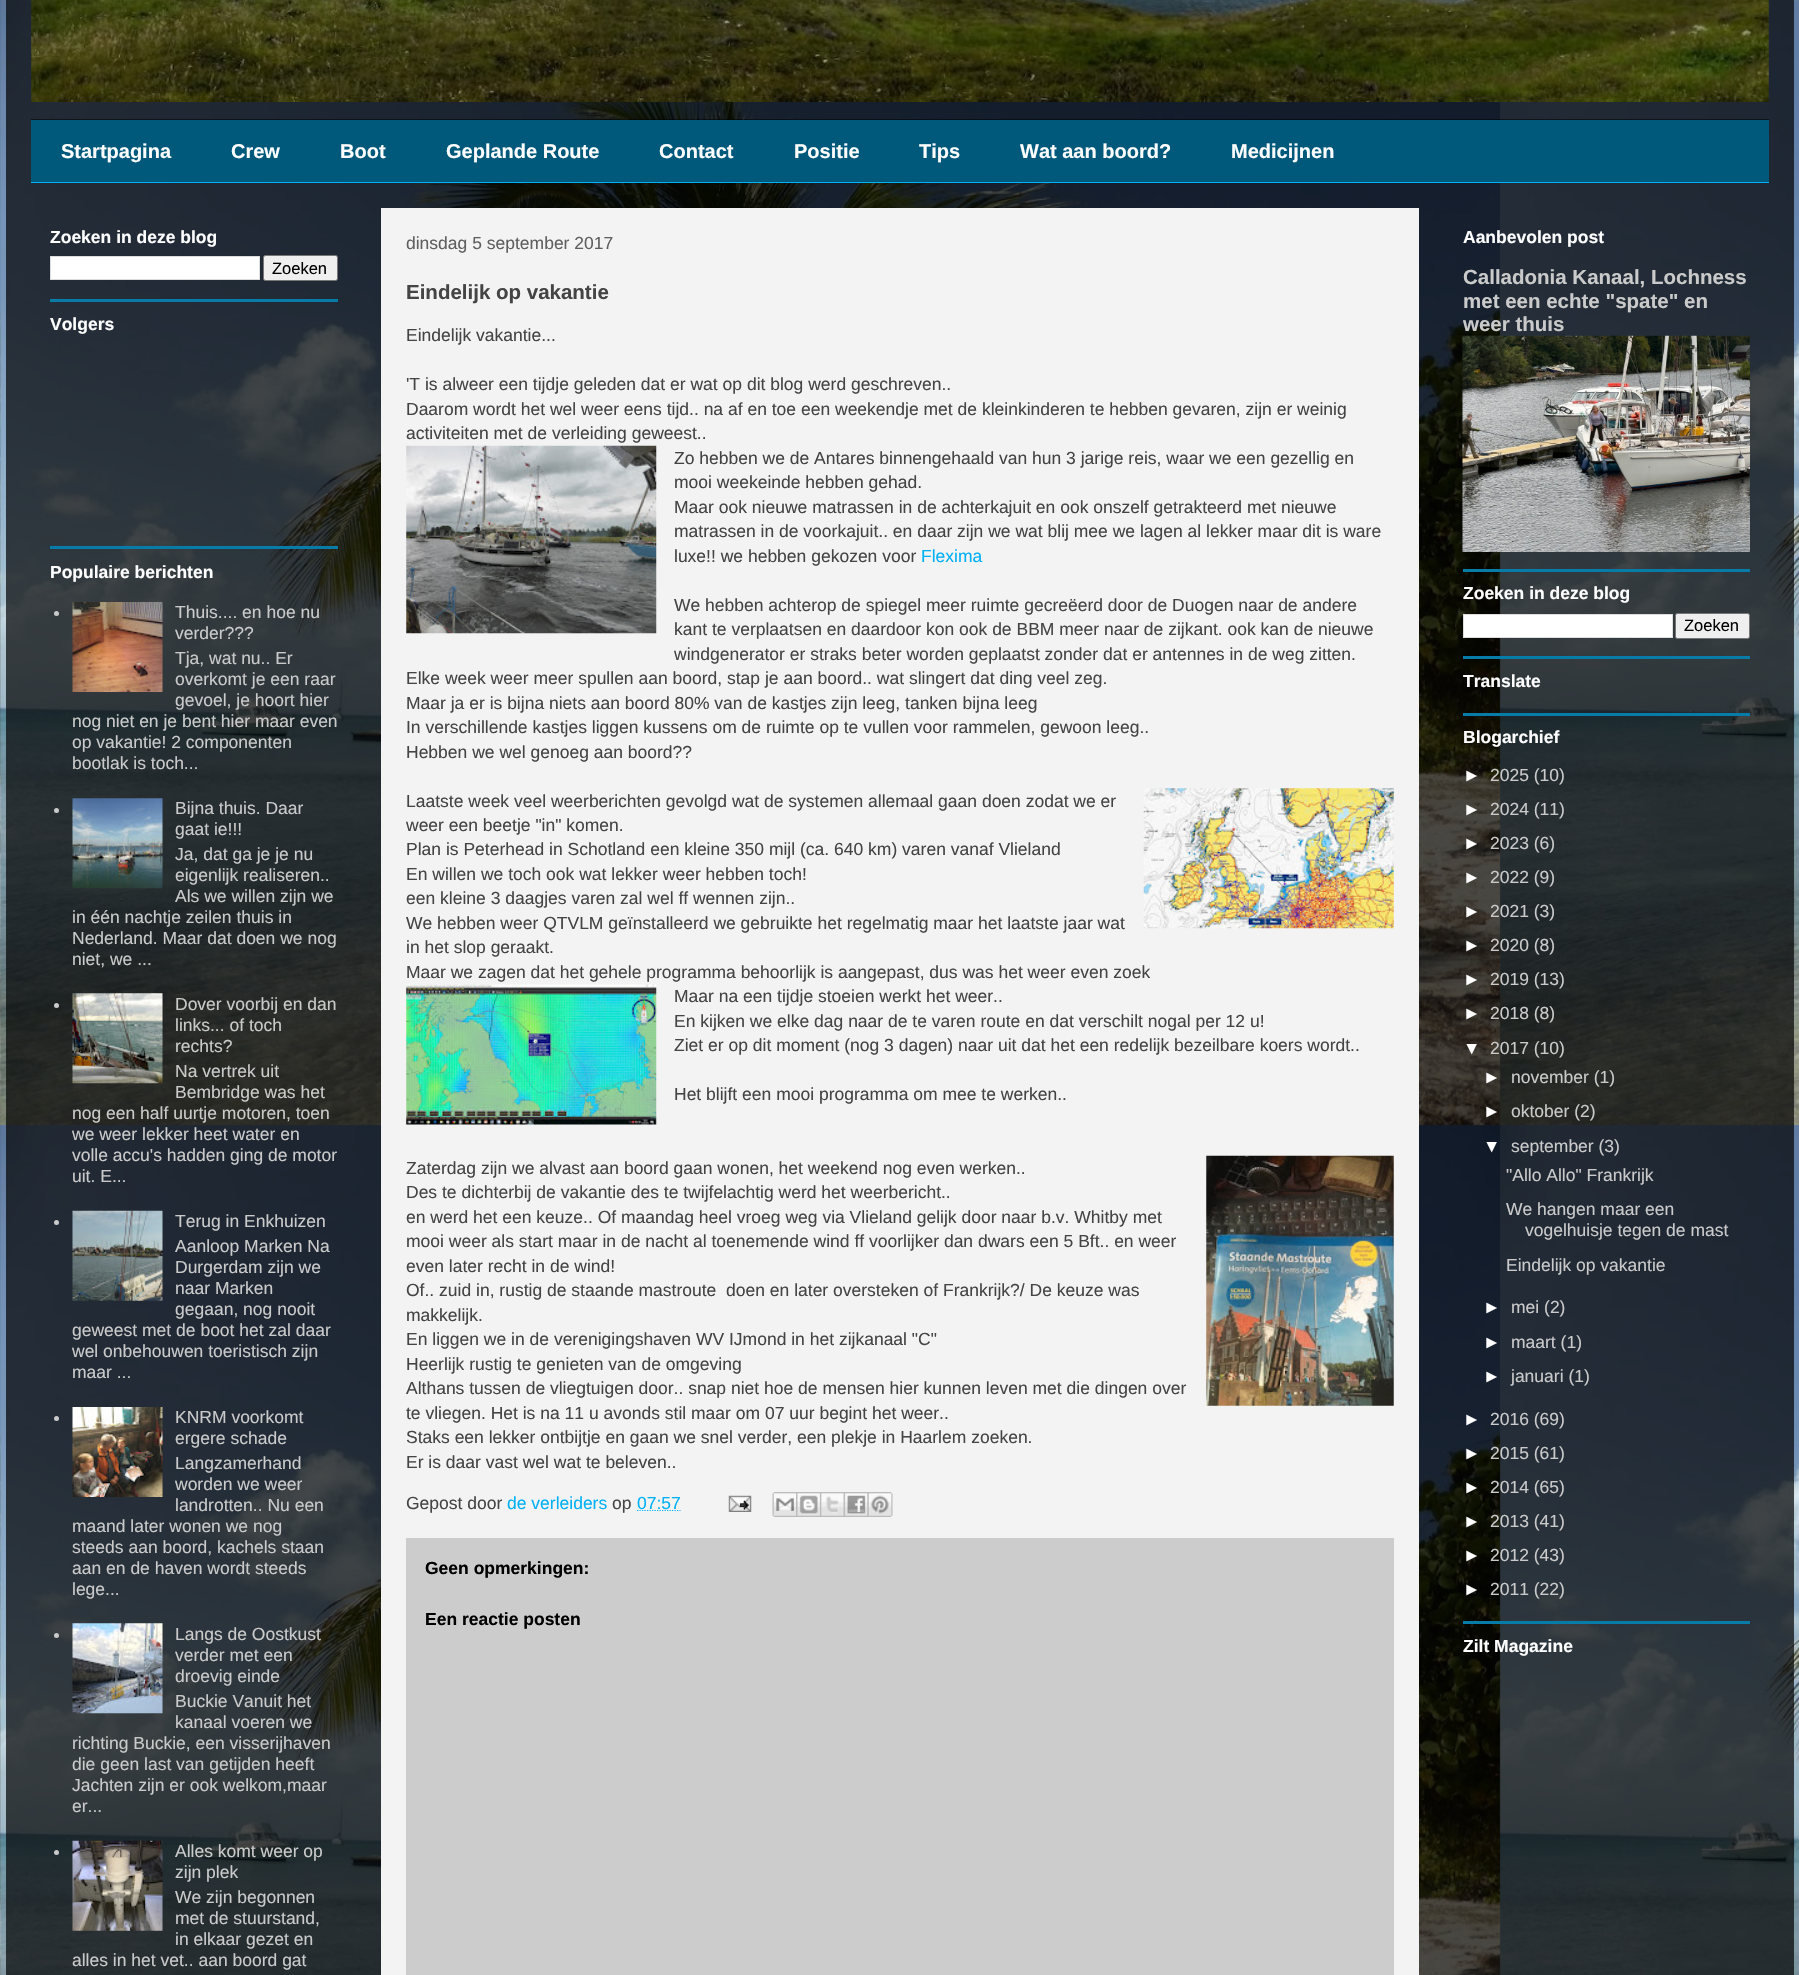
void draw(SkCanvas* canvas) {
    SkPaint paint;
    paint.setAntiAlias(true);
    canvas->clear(0xFFFFFFFF);
    canvas->drawImageRect(SkImages::DeferredFromEncodedData(SkData::MakeFromFileName("img1.png")), SkRect::MakeXYWH(0, 0, 1799, 1975), SkSamplingOptions());
    canvas->drawImageRect(SkImages::DeferredFromEncodedData(SkData::MakeFromFileName("img2.png")), SkRect::MakeXYWH(31, 0, 1738, 102), SkSamplingOptions());
    paint.setColor(0xFF00B1F6);
    canvas->drawRect(SkRect::MakeXYWH(31, 120, 1738, 63), paint);
    paint.setColor(0x80000000);
    canvas->drawRect(SkRect::MakeXYWH(31, 119, 1738, 63), paint);
    SkFont font1(fontMgr->matchFamilyStyle("Liberation Sans", SkFontStyle::Bold()), 20);
    font1.setSubpixel(true);
    paint.setColor(0xFFFFFFFF);
    canvas->drawString("Startpagina", 61, 158, font1, paint);
    canvas->drawString("Crew", 231, 158, font1, paint);
    canvas->drawString("Boot", 340, 158, font1, paint);
    canvas->drawString("Geplande Route", 446, 158, font1, paint);
    canvas->drawString("Contact", 659, 158, font1, paint);
    canvas->drawString("Positie", 794, 158, font1, paint);
    canvas->drawString("Tips", 919, 158, font1, paint);
    canvas->drawString("Wat aan boord?", 1020, 158, font1, paint);
    canvas->drawString("Medicijnen", 1231, 158, font1, paint);
    paint.setColor(0xFF087CA9);
    canvas->drawRect(SkRect::MakeXYWH(50, 299, 288, 3), paint);
    SkFont font2(fontMgr->matchFamilyStyle("Liberation Sans", SkFontStyle::Bold()), 17.5f);
    font2.setSubpixel(true);
    paint.setColor(0xFFFFFFFF);
    canvas->drawString("Zoeken in deze blog", 50, 243, font2, paint);
    canvas->drawRect(SkRect::MakeXYWH(50.5f, 256.5f, 209, 23), paint);
    paint.setStyle(SkPaint::kStroke_Style);
    paint.setStrokeWidth(1);
    paint.setColor(0xFFDDDDDD);
    canvas->drawRect(SkRect::MakeXYWH(50.5f, 256.5f, 209, 23), paint);
    paint.setStyle(SkPaint::kFill_Style);
    paint.setColor(0xFFEFEFEF);
    canvas->drawRoundRect(SkRect::MakeXYWH(263.5f, 255.5f, 74, 25), 2, 2, paint);
    paint.setStyle(SkPaint::kStroke_Style);
    paint.setColor(0xFF767676);
    canvas->drawRoundRect(SkRect::MakeXYWH(263.5f, 255.5f, 74, 25), 2, 2, paint);
    SkFont font3(fontMgr->matchFamilyStyle("Liberation Sans", SkFontStyle::Normal()), 16.5f);
    font3.setSubpixel(true);
    paint.setStyle(SkPaint::kFill_Style);
    paint.setColor(0xFF000000);
    canvas->drawString("Zoeken", 272, 274, font3, paint);
    paint.setColor(0xFF087CA9);
    canvas->drawRect(SkRect::MakeXYWH(50, 546, 288, 3), paint);
    paint.setColor(0xFFFFFFFF);
    canvas->drawString("Volgers", 50, 330, font2, paint);
    canvas->drawString("Populaire berichten", 50, 578, font2, paint);
    paint.setColor(0xFFCACACA);
    canvas->drawCircle(56.5f, 613.5f, 2.5f, paint);
    canvas->drawImageRect(SkImages::DeferredFromEncodedData(SkData::MakeFromFileName("img3.png")), SkRect::MakeXYWH(72, 602, 91, 90), SkSamplingOptions());
    SkFont font4(fontMgr->matchFamilyStyle("Liberation Sans", SkFontStyle::Normal()), 17.5f);
    font4.setSubpixel(true);
    canvas->drawString("Thuis.... en hoe nu", 175, 618, font4, paint);
    canvas->drawString("verder?\077?", 175, 639, font4, paint);
    canvas->drawString("Tja, wat nu.. Er", 175, 664, font4, paint);
    canvas->drawString("overkomt je een raar", 175, 685, font4, paint);
    canvas->drawString("gevoel, je hoort hier", 175, 706, font4, paint);
    canvas->drawString("nog niet en je bent hier maar even", 72, 727, font4, paint);
    canvas->drawString("op vakantie! 2 componenten", 72, 748, font4, paint);
    canvas->drawString("bootlak is toch...", 72, 769, font4, paint);
    canvas->drawCircle(56.5f, 810.5f, 2.5f, paint);
    canvas->drawImageRect(SkImages::DeferredFromEncodedData(SkData::MakeFromFileName("img4.png")), SkRect::MakeXYWH(72, 798, 91, 91), SkSamplingOptions());
    canvas->drawString("Bijna thuis. Daar", 175, 814, font4, paint);
    canvas->drawString("gaat ie!!!", 175, 835, font4, paint);
    canvas->drawString("Ja, dat ga je je nu", 175, 860, font4, paint);
    canvas->drawString("eigenlijk realiseren..", 175, 881, font4, paint);
    canvas->drawString("Als we willen zijn we", 175, 902, font4, paint);
    canvas->drawString("in één nachtje zeilen thuis in", 72, 923, font4, paint);
    canvas->drawString("Nederland. Maar dat doen we nog", 72, 944, font4, paint);
    canvas->drawString("niet, we ...", 72, 965, font4, paint);
    canvas->drawCircle(56.5f, 1005.5f, 2.5f, paint);
    canvas->drawImageRect(SkImages::DeferredFromEncodedData(SkData::MakeFromFileName("img5.png")), SkRect::MakeXYWH(72, 993, 91, 91), SkSamplingOptions());
    canvas->drawString("Dover voorbij en dan", 175, 1010, font4, paint);
    canvas->drawString("links... of toch", 175, 1031, font4, paint);
    canvas->drawString("rechts?", 175, 1052, font4, paint);
    canvas->drawString("Na vertrek uit", 175, 1077, font4, paint);
    canvas->drawString("Bembridge was het", 175, 1098, font4, paint);
    canvas->drawString("nog een half uurtje motoren, toen", 72, 1119, font4, paint);
    canvas->drawString("we weer lekker heet water en", 72, 1140, font4, paint);
    canvas->drawString("volle accu's hadden ging de motor", 72, 1161, font4, paint);
    canvas->drawString("uit. E...", 72, 1182, font4, paint);
    canvas->drawCircle(56.5f, 1222.5f, 2.5f, paint);
    canvas->drawImageRect(SkImages::DeferredFromEncodedData(SkData::MakeFromFileName("img6.png")), SkRect::MakeXYWH(72, 1210, 91, 91), SkSamplingOptions());
    canvas->drawString("Terug in Enkhuizen", 175, 1227, font4, paint);
    canvas->drawString("Aanloop Marken Na", 175, 1252, font4, paint);
    canvas->drawString("Durgerdam zijn we", 175, 1273, font4, paint);
    canvas->drawString("naar Marken", 175, 1294, font4, paint);
    canvas->drawString("gegaan, nog nooit", 175, 1315, font4, paint);
    canvas->drawString("geweest met de boot het zal daar", 72, 1336, font4, paint);
    canvas->drawString("wel onbehouwen toeristisch zijn", 72, 1357, font4, paint);
    canvas->drawString("maar ...", 72, 1378, font4, paint);
    canvas->drawCircle(56.5f, 1418.5f, 2.5f, paint);
    canvas->drawImageRect(SkImages::DeferredFromEncodedData(SkData::MakeFromFileName("img7.png")), SkRect::MakeXYWH(72, 1407, 91, 90), SkSamplingOptions());
    canvas->drawString("KNRM voorkomt", 175, 1423, font4, paint);
    canvas->drawString("ergere schade", 175, 1444, font4, paint);
    canvas->drawString("Langzamerhand", 175, 1469, font4, paint);
    canvas->drawString("worden we weer", 175, 1490, font4, paint);
    canvas->drawString("landrotten.. Nu een", 175, 1511, font4, paint);
    canvas->drawString("maand later wonen we nog", 72, 1532, font4, paint);
    canvas->drawString("steeds aan boord, kachels staan", 72, 1553, font4, paint);
    canvas->drawString("aan en de haven wordt steeds", 72, 1574, font4, paint);
    canvas->drawString("lege...", 72, 1595, font4, paint);
    canvas->drawCircle(56.5f, 1635.5f, 2.5f, paint);
    canvas->drawImageRect(SkImages::DeferredFromEncodedData(SkData::MakeFromFileName("img8.png")), SkRect::MakeXYWH(72, 1623, 91, 91), SkSamplingOptions());
    canvas->drawString("Langs de Oostkust", 175, 1640, font4, paint);
    canvas->drawString("verder met een", 175, 1661, font4, paint);
    canvas->drawString("droevig einde", 175, 1682, font4, paint);
    canvas->drawString("Buckie Vanuit het", 175, 1707, font4, paint);
    canvas->drawString("kanaal voeren we", 175, 1728, font4, paint);
    canvas->drawString("richting Buckie, een visserijhaven", 72, 1749, font4, paint);
    canvas->drawString("die geen last van getijden heeft", 72, 1770, font4, paint);
    canvas->drawString("Jachten zijn er ook welkom,maar", 72, 1791, font4, paint);
    canvas->drawString("er...", 72, 1812, font4, paint);
    canvas->drawCircle(56.5f, 1852.5f, 2.5f, paint);
    canvas->drawImageRect(SkImages::DeferredFromEncodedData(SkData::MakeFromFileName("img9.png")), SkRect::MakeXYWH(72, 1840, 91, 91), SkSamplingOptions());
    canvas->drawString("Alles komt weer op", 175, 1857, font4, paint);
    canvas->drawString("zijn plek", 175, 1878, font4, paint);
    canvas->drawString("We zijn begonnen", 175, 1903, font4, paint);
    canvas->drawString("met de stuurstand,", 175, 1924, font4, paint);
    canvas->drawString("in elkaar gezet en", 175, 1945, font4, paint);
    canvas->drawString("alles in het vet.. aan boord gat", 72, 1966, font4, paint);
    paint.setColor(0xFFF3F3F3);
    canvas->drawRect(SkRect::MakeXYWH(381, 208, 1038, 1767), paint);
    paint.setColor(0xFF5F5F5F);
    canvas->drawString("dinsdag 5 september 2017", 406, 249, font4, paint);
    SkFont font5(fontMgr->matchFamilyStyle("Liberation Sans", SkFontStyle::Bold()), 20.5f);
    font5.setSubpixel(true);
    paint.setColor(0xFF444444);
    canvas->drawString("Eindelijk op vakantie", 406, 299, font5, paint);
    canvas->drawString("Eindelijk vakantie...", 406, 341, font4, paint);
    canvas->drawString("'T is alweer een tijdje geleden dat er wat op dit blog werd geschreven..", 406, 390, font4, paint);
    canvas->drawString("Daarom wordt het wel weer eens tijd.. na af en toe een weekendje met de kleinkinderen te hebben gevaren, zijn er weinig", 406, 415, font4, paint);
    canvas->drawString("activiteiten met de verleiding geweest..", 406, 439, font4, paint);
    canvas->drawImageRect(SkImages::DeferredFromEncodedData(SkData::MakeFromFileName("img10.png")), SkRect::MakeXYWH(406, 445, 251, 189), SkSamplingOptions());
    canvas->drawString("Zo hebben we de Antares binnengehaald van hun 3 jarige reis, waar we een gezellig en", 674, 464, font4, paint);
    canvas->drawString("mooi weekeinde hebben gehad.", 674, 488, font4, paint);
    canvas->drawString("Maar ook nieuwe matrassen in de achterkajuit en ook onszelf getrakteerd met nieuwe", 674, 513, font4, paint);
    canvas->drawString("matrassen in de voorkajuit.. en daar zijn we wat blij mee we lagen al lekker maar dit is ware", 674, 537, font4, paint);
    canvas->drawString("luxe!! we hebben gekozen voor", 674, 562, font4, paint);
    paint.setColor(0xFF00B1F6);
    canvas->drawString("Flexima", 921, 562, font4, paint);
    paint.setColor(0xFF444444);
    canvas->drawString("We hebben achterop de spiegel meer ruimte gecreëerd door de Duogen naar de andere", 674, 611, font4, paint);
    canvas->drawString("kant te verplaatsen en daardoor kon ook de BBM meer naar de zijkant. ook kan de nieuwe", 674, 635, font4, paint);
    canvas->drawString("windgenerator er straks beter worden geplaatst zonder dat er antennes in de weg zitten.", 674, 660, font4, paint);
    canvas->drawString("Elke week weer meer spullen aan boord, stap je aan boord.. wat slingert dat ding veel zeg.", 406, 684, font4, paint);
    canvas->drawString("Maar ja er is bijna niets aan boord 80% van de kastjes zijn leeg, tanken bijna leeg", 406, 709, font4, paint);
    canvas->drawString("In verschillende kastjes liggen kussens om de ruimte op te vullen voor rammelen, gewoon leeg..", 406, 733, font4, paint);
    canvas->drawString("Hebben we wel genoeg aan boord?\077", 406, 758, font4, paint);
    canvas->drawString("Laatste week veel weerberichten gevolgd wat de systemen allemaal gaan doen zodat we er", 406, 807, font4, paint);
    canvas->drawImageRect(SkImages::DeferredFromEncodedData(SkData::MakeFromFileName("img11.png")), SkRect::MakeXYWH(1143, 788, 251, 141), SkSamplingOptions());
    canvas->drawString("weer een beetje \"in\" komen.", 406, 831, font4, paint);
    canvas->drawString("Plan is Peterhead in Schotland een kleine 350 mijl (ca. 640 km) varen vanaf Vlieland", 406, 855, font4, paint);
    canvas->drawString("En willen we toch ook wat lekker weer hebben toch!", 406, 880, font4, paint);
    canvas->drawString("een kleine 3 daagjes varen zal wel ff wennen zijn..", 406, 904, font4, paint);
    canvas->drawString("We hebben weer QTVLM geïnstalleerd we gebruikte het regelmatig maar het laatste jaar wat", 406, 929, font4, paint);
    canvas->drawString("in het slop geraakt.", 406, 953, font4, paint);
    canvas->drawString("Maar we zagen dat het gehele programma behoorlijk is aangepast, dus was het weer even zoek", 406, 978, font4, paint);
    canvas->drawImageRect(SkImages::DeferredFromEncodedData(SkData::MakeFromFileName("img12.png")), SkRect::MakeXYWH(406, 984, 251, 141), SkSamplingOptions());
    canvas->drawString("Maar na een tijdje stoeien werkt het weer..", 674, 1002, font4, paint);
    canvas->drawString("En kijken we elke dag naar de te varen route en dat verschilt nogal per 12 u!", 674, 1027, font4, paint);
    canvas->drawString("Ziet er op dit moment (nog 3 dagen) naar uit dat het een redelijk bezeilbare koers wordt..", 674, 1051, font4, paint);
    canvas->drawString("Het blijft een mooi programma om mee te werken..", 674, 1100, font4, paint);
    canvas->drawString("Zaterdag zijn we alvast aan boord gaan wonen, het weekend nog even werken..", 406, 1174, font4, paint);
    canvas->drawImageRect(SkImages::DeferredFromEncodedData(SkData::MakeFromFileName("img13.png")), SkRect::MakeXYWH(1206, 1155, 188, 251), SkSamplingOptions());
    canvas->drawString("Des te dichterbij de vakantie des te twijfelachtig werd het weerbericht..", 406, 1198, font4, paint);
    canvas->drawString("en werd het een keuze.. Of maandag heel vroeg weg via Vlieland gelijk door naar b.v. Whitby met", 406, 1223, font4, paint);
    canvas->drawString("mooi weer als start maar in de nacht al toenemende wind ff voorlijker dan dwars een 5 Bft.. en weer", 406, 1247, font4, paint);
    canvas->drawString("even later recht in de wind!", 406, 1272, font4, paint);
    canvas->drawString("Of.. zuid in, rustig de staande mastroute  doen en later oversteken of Frankrijk?/ De keuze was", 406, 1296, font4, paint);
    canvas->drawString("makkelijk.", 406, 1321, font4, paint);
    canvas->drawString("En liggen we in de verenigingshaven WV IJmond in het zijkanaal \"C\"", 406, 1345, font4, paint);
    canvas->drawString("Heerlijk rustig te genieten van de omgeving", 406, 1370, font4, paint);
    canvas->drawString("Althans tussen de vliegtuigen door.. snap niet hoe de mensen hier kunnen leven met die dingen over", 406, 1394, font4, paint);
    canvas->drawString("te vliegen. Het is na 11 u avonds stil maar om 07 uur begint het weer..", 406, 1419, font4, paint);
    canvas->drawString("Staks een lekker ontbijtje en gaan we snel verder, een plekje in Haarlem zoeken.", 406, 1443, font4, paint);
    canvas->drawString("Er is daar vast wel wat te beleven..", 406, 1468, font4, paint);
    canvas->drawString("Gepost door", 406, 1509, font4, paint);
    paint.setColor(0xFF00B1F6);
    canvas->drawString("de verleiders", 507, 1509, font4, paint);
    paint.setColor(0xFF444444);
    canvas->drawString("op", 612, 1509, font4, paint);
    paint.setStyle(SkPaint::kStroke_Style);
    paint.setStrokeWidth(1.2f);
    paint.setColor(0xFF00B1F6);
    paint.setPathEffect(SkDashPathEffect::Make({{1.25f, 1.25f}}, 0));
    canvas->drawPath(SkPathBuilder().moveTo(637, 1510.5f).lineTo(680.5f, 1510.5f).detach(), paint);
    paint.setPathEffect(nullptr);
    paint.setStyle(SkPaint::kFill_Style);
    canvas->drawString("07:57", 637, 1509, font4, paint);
    canvas->drawImageRect(SkImages::DeferredFromEncodedData(SkData::MakeFromFileName("img14.png")), SkRect::MakeXYWH(728, 1495, 24, 17), SkSamplingOptions());
    canvas->drawImageRect(SkImages::DeferredFromEncodedData(SkData::MakeFromFileName("img15.png")), SkRect::MakeXYWH(772, 1492, 25, 25), SkSamplingOptions());
    canvas->drawImageRect(SkImages::DeferredFromEncodedData(SkData::MakeFromFileName("img16.png")), SkRect::MakeXYWH(796, 1492, 24, 25), SkSamplingOptions());
    canvas->drawImageRect(SkImages::DeferredFromEncodedData(SkData::MakeFromFileName("img17.png")), SkRect::MakeXYWH(820, 1492, 24, 25), SkSamplingOptions());
    canvas->drawImageRect(SkImages::DeferredFromEncodedData(SkData::MakeFromFileName("img18.png")), SkRect::MakeXYWH(843, 1492, 25, 25), SkSamplingOptions());
    canvas->drawImageRect(SkImages::DeferredFromEncodedData(SkData::MakeFromFileName("img19.png")), SkRect::MakeXYWH(867, 1492, 26, 25), SkSamplingOptions());
    paint.setColor(0xFFCCCCCC);
    canvas->drawRect(SkRect::MakeXYWH(406, 1538, 988, 437), paint);
    paint.setColor(0xFF000000);
    canvas->drawString("Geen opmerkingen:", 425, 1574, font2, paint);
    canvas->drawString("Een reactie posten", 425, 1625, font2, paint);
    paint.setColor(0xFF087CA9);
    canvas->drawRect(SkRect::MakeXYWH(1463, 569, 287, 3), paint);
    paint.setColor(0xFFFFFFFF);
    canvas->drawString("Aanbevolen post", 1463, 243, font2, paint);
    paint.setColor(0xFFCACACA);
    canvas->drawString("Calladonia Kanaal, Lochness", 1463, 284, font5, paint);
    canvas->drawString("met een echte \"spate\" en", 1463, 308, font5, paint);
    canvas->drawString("weer thuis", 1463, 331, font5, paint);
    canvas->drawImageRect(SkImages::DeferredFromEncodedData(SkData::MakeFromFileName("img20.png")), SkRect::MakeXYWH(1462, 335, 288, 217), SkSamplingOptions());
    paint.setColor(0xFF087CA9);
    canvas->drawRect(SkRect::MakeXYWH(1463, 656, 287, 3), paint);
    paint.setColor(0xFFFFFFFF);
    canvas->drawString("Zoeken in deze blog", 1463, 599, font2, paint);
    canvas->drawRect(SkRect::MakeXYWH(1463.5f, 614.5f, 209, 23), paint);
    paint.setStyle(SkPaint::kStroke_Style);
    paint.setStrokeWidth(1);
    paint.setColor(0xFFDDDDDD);
    canvas->drawRect(SkRect::MakeXYWH(1463.5f, 614.5f, 209, 23), paint);
    paint.setStyle(SkPaint::kFill_Style);
    paint.setColor(0xFFEFEFEF);
    canvas->drawRoundRect(SkRect::MakeXYWH(1675.5f, 613.5f, 74, 25), 2, 2, paint);
    paint.setStyle(SkPaint::kStroke_Style);
    paint.setColor(0xFF767676);
    canvas->drawRoundRect(SkRect::MakeXYWH(1675.5f, 613.5f, 74, 25), 2, 2, paint);
    paint.setStyle(SkPaint::kFill_Style);
    paint.setColor(0xFF000000);
    canvas->drawString("Zoeken", 1684, 631, font3, paint);
    paint.setColor(0xFF087CA9);
    canvas->drawRect(SkRect::MakeXYWH(1463, 713, 287, 3), paint);
    paint.setColor(0xFFFFFFFF);
    canvas->drawString("Translate", 1463, 687, font2, paint);
    paint.setColor(0xFF087CA9);
    canvas->drawRect(SkRect::MakeXYWH(1463, 1621, 287, 3), paint);
    paint.setColor(0xFFFFFFFF);
    canvas->drawString("Blogarchief", 1463, 743, font2, paint);
    canvas->drawString("►", 1463, 781, font4, paint);
    paint.setColor(0xFFCACACA);
    canvas->drawString("2025 (10)", 1490, 781, font4, paint);
    paint.setColor(0xFFFFFFFF);
    canvas->drawString("►", 1463, 815, font4, paint);
    paint.setColor(0xFFCACACA);
    canvas->drawString("2024 (11)", 1490, 815, font4, paint);
    paint.setColor(0xFFFFFFFF);
    canvas->drawString("►", 1463, 849, font4, paint);
    paint.setColor(0xFFCACACA);
    canvas->drawString("2023 (6)", 1490, 849, font4, paint);
    paint.setColor(0xFFFFFFFF);
    canvas->drawString("►", 1463, 883, font4, paint);
    paint.setColor(0xFFCACACA);
    canvas->drawString("2022 (9)", 1490, 883, font4, paint);
    paint.setColor(0xFFFFFFFF);
    canvas->drawString("►", 1463, 917, font4, paint);
    paint.setColor(0xFFCACACA);
    canvas->drawString("2021 (3)", 1490, 917, font4, paint);
    paint.setColor(0xFFFFFFFF);
    canvas->drawString("►", 1463, 951, font4, paint);
    paint.setColor(0xFFCACACA);
    canvas->drawString("2020 (8)", 1490, 951, font4, paint);
    paint.setColor(0xFFFFFFFF);
    canvas->drawString("►", 1463, 985, font4, paint);
    paint.setColor(0xFFCACACA);
    canvas->drawString("2019 (13)", 1490, 985, font4, paint);
    paint.setColor(0xFFFFFFFF);
    canvas->drawString("►", 1463, 1019, font4, paint);
    paint.setColor(0xFFCACACA);
    canvas->drawString("2018 (8)", 1490, 1019, font4, paint);
    paint.setColor(0xFFFFFFFF);
    canvas->drawString("▼", 1463, 1054, font4, paint);
    paint.setColor(0xFFCACACA);
    canvas->drawString("2017 (10)", 1490, 1054, font4, paint);
    paint.setColor(0xFFFFFFFF);
    canvas->drawString("►", 1483, 1083, font4, paint);
    paint.setColor(0xFFCACACA);
    canvas->drawString("november (1)", 1511, 1083, font4, paint);
    paint.setColor(0xFFFFFFFF);
    canvas->drawString("►", 1483, 1117, font4, paint);
    paint.setColor(0xFFCACACA);
    canvas->drawString("oktober (2)", 1511, 1117, font4, paint);
    paint.setColor(0xFFFFFFFF);
    canvas->drawString("▼", 1483, 1152, font4, paint);
    paint.setColor(0xFFCACACA);
    canvas->drawString("september (3)", 1511, 1152, font4, paint);
    canvas->drawString("\"Allo Allo\" Frankrijk", 1506, 1181, font4, paint);
    canvas->drawString("We hangen maar een", 1506, 1215, font4, paint);
    canvas->drawString("vogelhuisje tegen de mast", 1525, 1236, font4, paint);
    canvas->drawString("Eindelijk op vakantie", 1506, 1271, font4, paint);
    paint.setColor(0xFFFFFFFF);
    canvas->drawString("►", 1483, 1313, font4, paint);
    paint.setColor(0xFFCACACA);
    canvas->drawString("mei (2)", 1511, 1313, font4, paint);
    paint.setColor(0xFFFFFFFF);
    canvas->drawString("►", 1483, 1348, font4, paint);
    paint.setColor(0xFFCACACA);
    canvas->drawString("maart (1)", 1511, 1348, font4, paint);
    paint.setColor(0xFFFFFFFF);
    canvas->drawString("►", 1483, 1382, font4, paint);
    paint.setColor(0xFFCACACA);
    canvas->drawString("januari (1)", 1511, 1382, font4, paint);
    paint.setColor(0xFFFFFFFF);
    canvas->drawString("►", 1463, 1425, font4, paint);
    paint.setColor(0xFFCACACA);
    canvas->drawString("2016 (69)", 1490, 1425, font4, paint);
    paint.setColor(0xFFFFFFFF);
    canvas->drawString("►", 1463, 1459, font4, paint);
    paint.setColor(0xFFCACACA);
    canvas->drawString("2015 (61)", 1490, 1459, font4, paint);
    paint.setColor(0xFFFFFFFF);
    canvas->drawString("►", 1463, 1493, font4, paint);
    paint.setColor(0xFFCACACA);
    canvas->drawString("2014 (65)", 1490, 1493, font4, paint);
    paint.setColor(0xFFFFFFFF);
    canvas->drawString("►", 1463, 1527, font4, paint);
    paint.setColor(0xFFCACACA);
    canvas->drawString("2013 (41)", 1490, 1527, font4, paint);
    paint.setColor(0xFFFFFFFF);
    canvas->drawString("►", 1463, 1561, font4, paint);
    paint.setColor(0xFFCACACA);
    canvas->drawString("2012 (43)", 1490, 1561, font4, paint);
    paint.setColor(0xFFFFFFFF);
    canvas->drawString("►", 1463, 1595, font4, paint);
    paint.setColor(0xFFCACACA);
    canvas->drawString("2011 (22)", 1490, 1595, font4, paint);
    paint.setColor(0xFFFFFFFF);
    canvas->drawString("Zilt Magazine", 1463, 1652, font2, paint);
}
